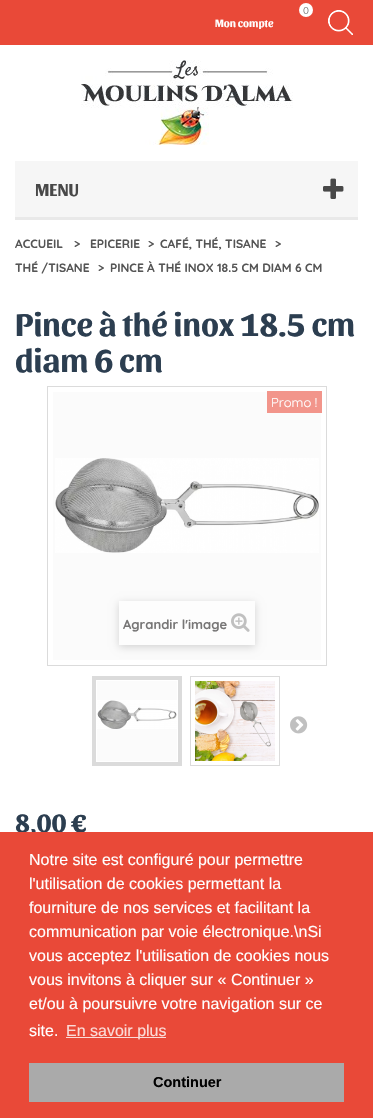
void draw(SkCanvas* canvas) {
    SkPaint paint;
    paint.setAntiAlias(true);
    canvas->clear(0xFFFFFFFF);
    paint.setColor(0xFFE94938);
    canvas->drawRect(SkRect::MakeXYWH(0, 0, 373, 45), paint);
    SkFont font1(fontMgr->matchFamilyStyle("Sansita", SkFontStyle::Bold()), 11);
    font1.setSubpixel(true);
    paint.setColor(0xFFFFFFFF);
    canvas->drawString("Mon compte", 215, 27, font1, paint);
    canvas->drawCircle(306, 10, 7, paint);
    SkFont font2(fontMgr->matchFamilyStyle("Quicksand", SkFontStyle::Normal()), 10);
    font2.setSubpixel(true);
    paint.setColor(0xFF777676);
    canvas->drawString("0", 303, 14, font2, paint);
    canvas->drawImageRect(SkImages::DeferredFromEncodedData(SkData::MakeFromFileName("img1.png")), SkRect::MakeXYWH(328, 10, 25, 25), SkSamplingOptions());
    canvas->drawImageRect(SkImages::DeferredFromEncodedData(SkData::MakeFromFileName("img2.png")), SkRect::MakeXYWH(81, 60, 212, 85), SkSamplingOptions());
    paint.setColor(0xFFF6F6F6);
    canvas->drawRect(SkRect::MakeXYWH(15, 161, 343, 56), paint);
    paint.setColor(0xFFE9E9E9);
    canvas->drawRect(SkRect::MakeXYWH(15, 217, 343, 3), paint);
    SkFont font3(fontMgr->matchFamilyStyle("Sansita", SkFontStyle::Bold()), 18);
    font3.setSubpixel(true);
    paint.setColor(0xFF484848);
    canvas->drawString("MENU", 35, 196, font3, paint);
    canvas->drawImageRect(SkImages::DeferredFromEncodedData(SkData::MakeFromFileName("img3.png")), SkRect::MakeXYWH(323, 178, 21, 21), SkSamplingOptions());
    SkFont font4(fontMgr->matchFamilyStyle("Quicksand", SkFontStyle::Bold()), 12);
    font4.setSubpixel(true);
    paint.setColor(0xFF555555);
    canvas->drawString("EPICERIE", 90, 248, font4, paint);
    canvas->drawString(">", 148, 248, font4, paint);
    canvas->drawString("CAFÉ, THÉ, TISANE", 160, 248, font4, paint);
    canvas->drawString(">", 275, 248, font4, paint);
    canvas->drawString("THÉ /TISANE", 15, 272, font4, paint);
    canvas->drawString(">", 98, 272, font4, paint);
    canvas->drawString("PINCE À THÉ INOX 18.5 CM DIAM 6 CM", 110, 272, font4, paint);
    canvas->drawString("ACCUEIL", 15, 248, font4, paint);
    canvas->drawString(">", 74, 248, font4, paint);
    SkFont font5(fontMgr->matchFamilyStyle("Sansita", SkFontStyle::Bold()), 33);
    font5.setSubpixel(true);
    paint.setColor(0xFF2C3E50);
    canvas->drawString("Pince à thé inox 18.5 cm", 15, 336, font5, paint);
    canvas->drawString("diam 6 cm", 15, 372, font5, paint);
    paint.setStyle(SkPaint::kStroke_Style);
    paint.setStrokeWidth(1);
    paint.setColor(0xFFDBDBDB);
    canvas->drawRect(SkRect::MakeXYWH(47.5f, 386.5f, 279, 279), paint);
    paint.setStyle(SkPaint::kFill_Style);
    paint.setColor(0xFFFBFBFB);
    canvas->drawRect(SkRect::MakeXYWH(53, 392, 268, 268), paint);
    paint.setColor(0xFFF2958B);
    canvas->drawRect(SkRect::MakeXYWH(267, 391, 55, 22), paint);
    SkFont font6(fontMgr->matchFamilyStyle("Quicksand", SkFontStyle::Normal()), 13);
    font6.setSubpixel(true);
    paint.setColor(0xFFFFFFFF);
    canvas->drawString("Promo !", 271, 407, font6, paint);
    canvas->drawImageRect(SkImages::DeferredFromEncodedData(SkData::MakeFromFileName("img4.png")), SkRect::MakeXYWH(55, 458, 264, 95), SkSamplingOptions());
    paint.setColor(0x29000000);
    paint.setMaskFilter(SkMaskFilter::MakeBlur(kNormal_SkBlurStyle, 4));
    canvas->drawRect(SkRect::MakeXYWH(119, 603, 136, 44), paint);
    paint.setMaskFilter(nullptr);
    paint.setColor(0xFFFDFDFD);
    canvas->drawRect(SkRect::MakeXYWH(119, 601, 136, 44), paint);
    SkFont font7(fontMgr->matchFamilyStyle("Quicksand", SkFontStyle::Bold()), 13);
    font7.setSubpixel(true);
    paint.setColor(0xFF777676);
    canvas->drawString("Agrandir l'image", 123, 629, font7, paint);
    canvas->drawImageRect(SkImages::DeferredFromEncodedData(SkData::MakeFromFileName("img5.png")), SkRect::MakeXYWH(231, 613, 19, 19), SkSamplingOptions());
    paint.setStyle(SkPaint::kStroke_Style);
    paint.setColor(0xFFDBDBDB);
    canvas->drawRect(SkRect::MakeXYWH(92.5f, 676.5f, 89, 89), paint);
    paint.setStyle(SkPaint::kFill_Style);
    paint.setColor(0xFFFBFBFB);
    canvas->drawRect(SkRect::MakeXYWH(97, 681, 80, 80), paint);
    paint.setStyle(SkPaint::kStroke_Style);
    paint.setStrokeWidth(3);
    paint.setColor(0xFFDBDBDB);
    canvas->drawRect(SkRect::MakeXYWH(94.5f, 678.5f, 85, 85), paint);
    canvas->drawImageRect(SkImages::DeferredFromEncodedData(SkData::MakeFromFileName("img6.png")), SkRect::MakeXYWH(97, 700, 80, 29), SkSamplingOptions());
    paint.setStrokeWidth(1);
    canvas->drawRect(SkRect::MakeXYWH(190.5f, 676.5f, 89, 89), paint);
    canvas->drawImageRect(SkImages::DeferredFromEncodedData(SkData::MakeFromFileName("img7.png")), SkRect::MakeXYWH(195, 681, 80, 80), SkSamplingOptions());
    canvas->drawImageRect(SkImages::DeferredFromEncodedData(SkData::MakeFromFileName("img8.png")), SkRect::MakeXYWH(290, 716, 18, 18), SkSamplingOptions());
    SkFont font8(fontMgr->matchFamilyStyle("Sansita", SkFontStyle::Bold()), 26);
    font8.setSubpixel(true);
    paint.setStyle(SkPaint::kFill_Style);
    paint.setColor(0xFF2C3E50);
    canvas->drawString("8,00 €", 15, 832, font8, paint);
    paint.setColor(0xFFE94938);
    canvas->drawRect(SkRect::MakeXYWH(0, 832, 373, 286), paint);
    SkFont font9(fontMgr->matchFamilyStyle("Liberation Sans", SkFontStyle::Normal()), 16);
    font9.setSubpixel(true);
    paint.setColor(0xFFFFFFFF);
    canvas->drawString("Notre site est configuré pour permettre", 29, 865, font9, paint);
    canvas->drawString("l'utilisation de cookies permettant la", 29, 889, font9, paint);
    canvas->drawString("fourniture de nos services et facilitant la", 29, 913, font9, paint);
    canvas->drawString("communication par voie électronique.\\nSi", 29, 937, font9, paint);
    canvas->drawString("vous acceptez l'utilisation de cookies nous", 29, 961, font9, paint);
    canvas->drawString("vous invitons à cliquer sur « Continuer »", 29, 985, font9, paint);
    canvas->drawString("et/ou à poursuivre votre navigation sur ce", 29, 1009, font9, paint);
    canvas->drawString("site.", 29, 1036, font9, paint);
    paint.setColor(0xFFFBDBD7);
    canvas->drawRect(SkRect::MakeXYWH(66, 1037, 100, 1), paint);
    canvas->drawString("En savoir plus", 66, 1036, font9, paint);
    paint.setColor(0xFFAAAAAA);
    canvas->drawRect(SkRect::MakeXYWH(29, 1063, 315, 39), paint);
    SkFont font10(fontMgr->matchFamilyStyle("Liberation Sans", SkFontStyle::Bold()), 14.5f);
    font10.setSubpixel(true);
    paint.setColor(0xFF000000);
    canvas->drawString("Continuer", 153, 1087, font10, paint);
}
